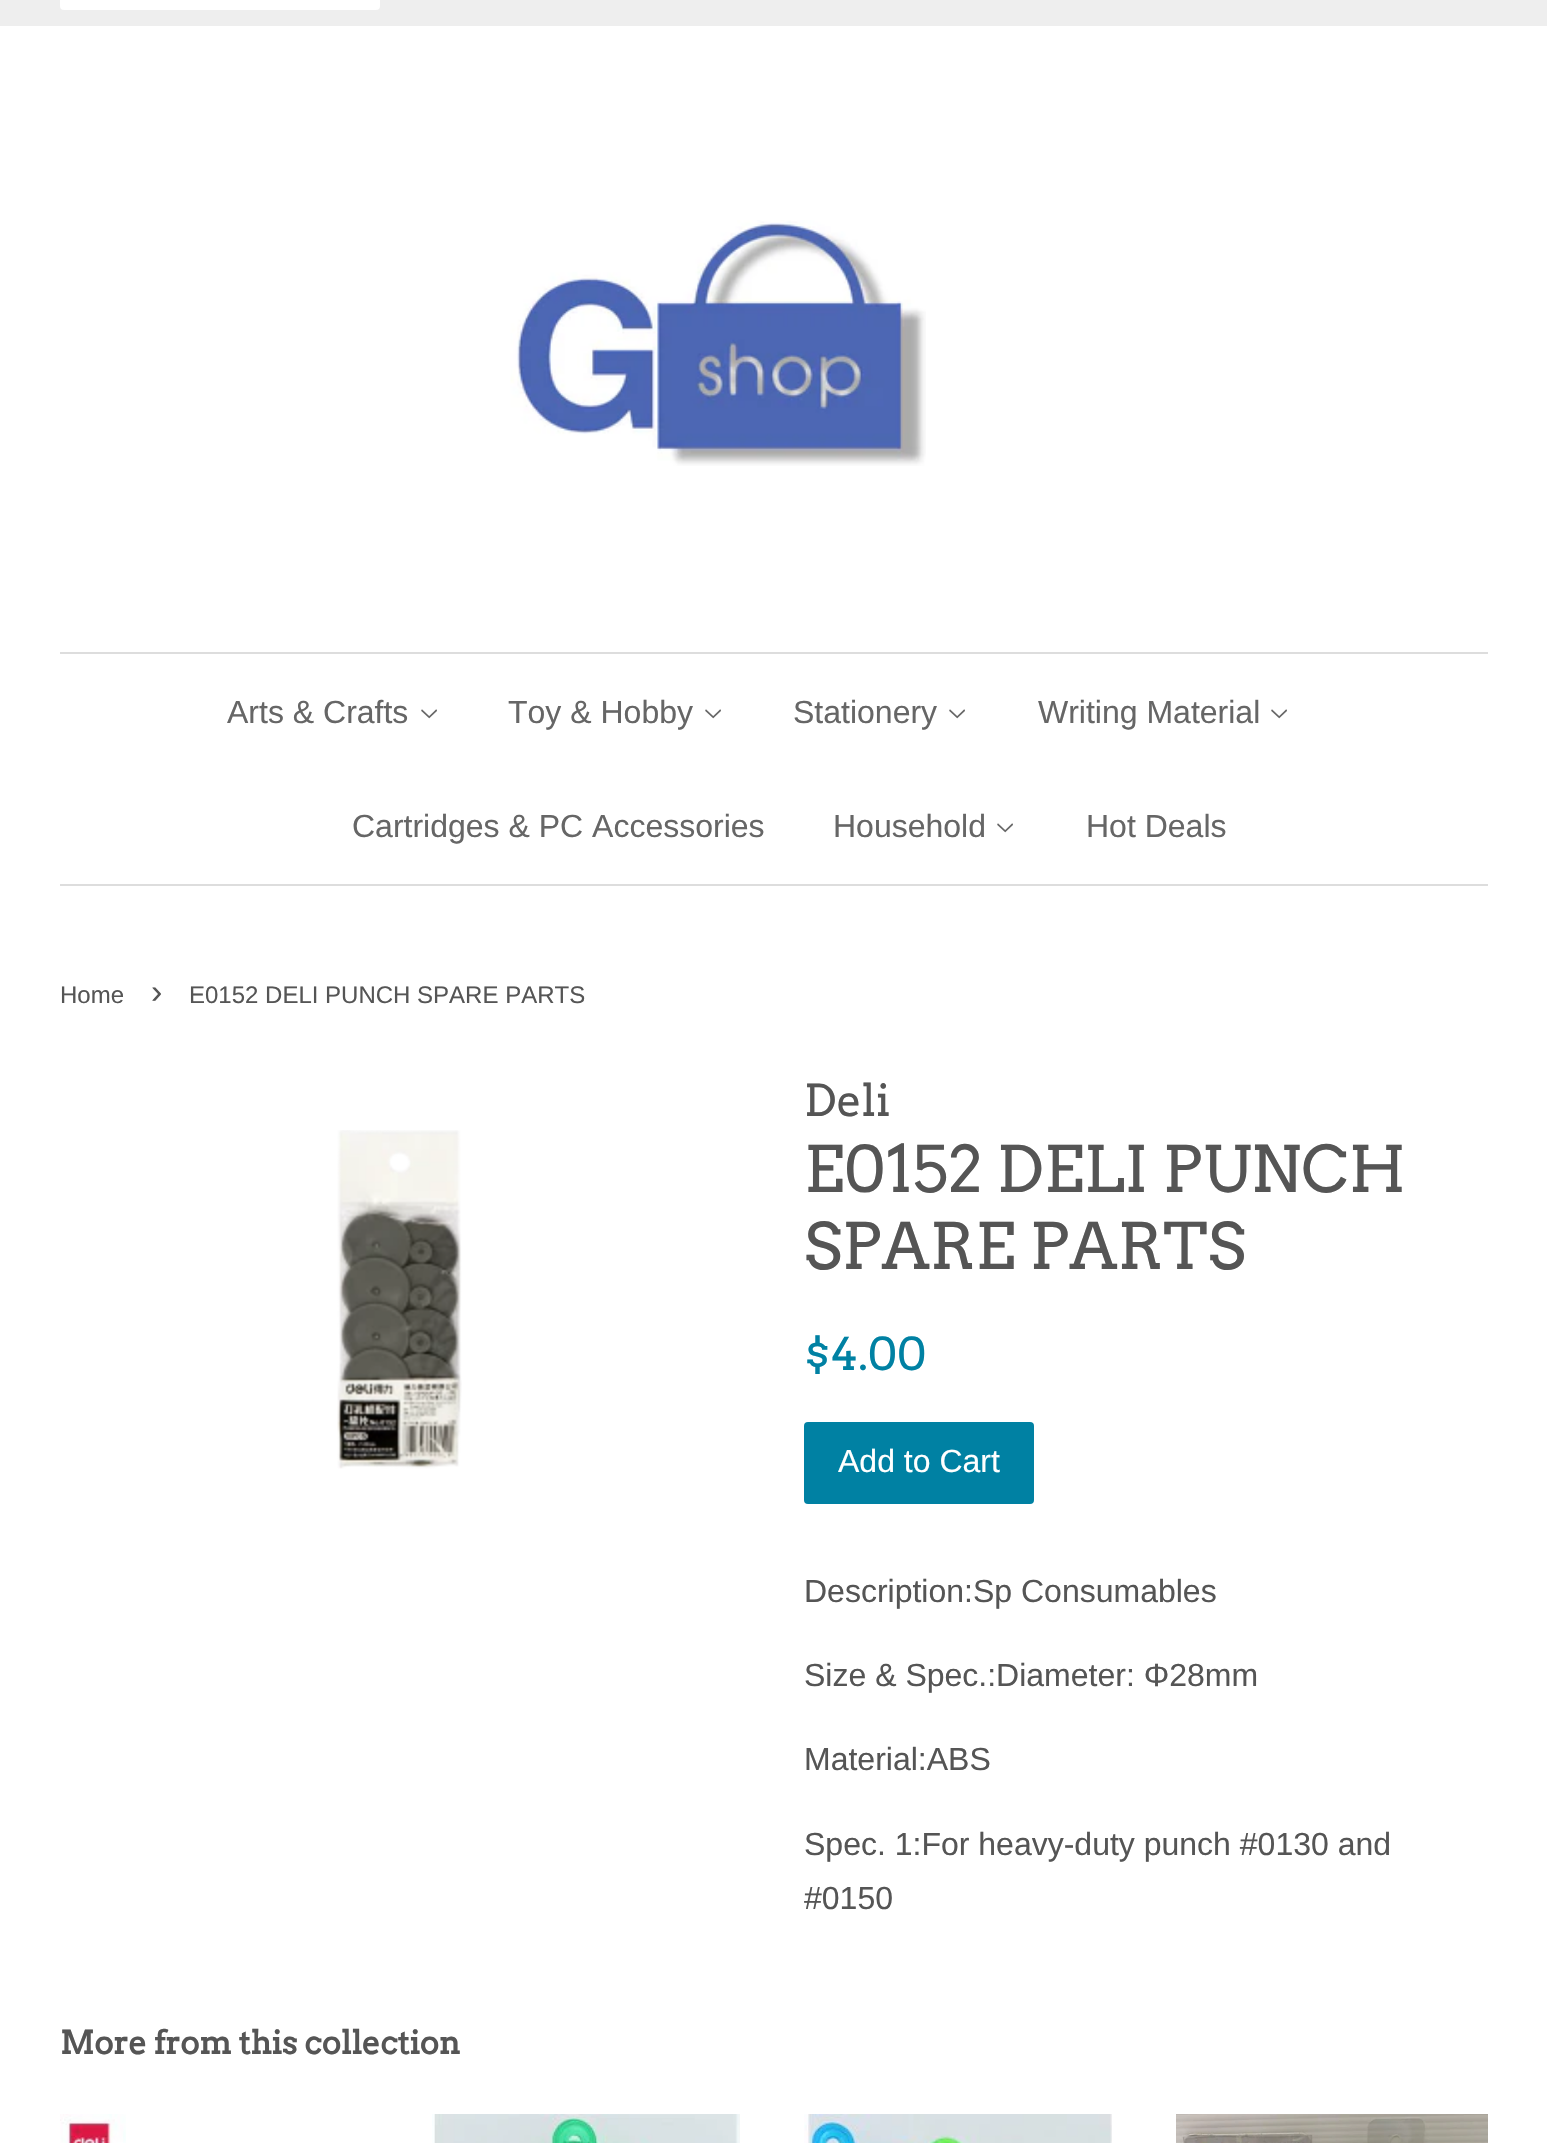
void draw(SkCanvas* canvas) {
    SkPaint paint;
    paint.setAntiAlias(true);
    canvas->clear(0xFFFFFFFF);
    paint.setColor(0xFFEEEEEE);
    canvas->drawRect(SkRect::MakeXYWH(0, 0, 1547, 26), paint);
    paint.setColor(0xFFFFFFFF);
    canvas->drawRoundRect(SkRect::MakeXYWH(60, -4, 320, 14), 4, 4, paint);
    canvas->drawImageRect(SkImages::DeferredFromEncodedData(SkData::MakeFromFileName("img1.png")), SkRect::MakeXYWH(510, 220, 416, 246), SkSamplingOptions());
    paint.setColor(0xFFDDDDDD);
    canvas->drawRect(SkRect::MakeXYWH(60, 652, 1428, 2), paint);
    canvas->drawRect(SkRect::MakeXYWH(60, 884, 1428, 2), paint);
    SkFont font1(fontMgr->matchFamilyStyle("Liberation Sans", SkFontStyle::Normal()), 32);
    font1.setSubpixel(true);
    paint.setColor(0xFF666666);
    canvas->drawString("Arts & Crafts", 227, 723, font1, paint);
    canvas->drawImageRect(SkImages::DeferredFromEncodedData(SkData::MakeFromFileName("img2.png")), SkRect::MakeXYWH(421, 709, 16, 10), SkSamplingOptions());
    canvas->drawString("Toy & Hobby", 508, 723, font1, paint);
    canvas->drawImageRect(SkImages::DeferredFromEncodedData(SkData::MakeFromFileName("img2.png")), SkRect::MakeXYWH(705, 709, 16, 10), SkSamplingOptions());
    canvas->drawString("Stationery", 793, 723, font1, paint);
    canvas->drawImageRect(SkImages::DeferredFromEncodedData(SkData::MakeFromFileName("img2.png")), SkRect::MakeXYWH(949, 709, 16, 10), SkSamplingOptions());
    canvas->drawString("Writing Material", 1038, 723, font1, paint);
    canvas->drawImageRect(SkImages::DeferredFromEncodedData(SkData::MakeFromFileName("img2.png")), SkRect::MakeXYWH(1271, 709, 16, 10), SkSamplingOptions());
    canvas->drawString("Cartridges & PC Accessories", 352, 837, font1, paint);
    canvas->drawString("Household", 833, 837, font1, paint);
    canvas->drawImageRect(SkImages::DeferredFromEncodedData(SkData::MakeFromFileName("img2.png")), SkRect::MakeXYWH(997, 823, 16, 10), SkSamplingOptions());
    canvas->drawString("Hot Deals", 1086, 837, font1, paint);
    SkFont font2(fontMgr->matchFamilyStyle("Liberation Sans", SkFontStyle::Normal()), 24);
    font2.setSubpixel(true);
    paint.setColor(0xFF555555);
    canvas->drawString("Home", 60, 1003, font2, paint);
    SkFont font3(fontMgr->matchFamilyStyle("Liberation Sans", SkFontStyle::Normal()), 34);
    font3.setSubpixel(true);
    canvas->drawString("›", 151, 1003, font3, paint);
    canvas->drawString("E0152 DELI PUNCH SPARE PARTS", 189, 1003, font2, paint);
    canvas->drawImageRect(SkImages::DeferredFromEncodedData(SkData::MakeFromFileName("img3.png")), SkRect::MakeXYWH(337, 1130, 125, 339), SkSamplingOptions());
    SkFont font4(fontMgr->matchFamilyStyle("Arvo", SkFontStyle::Normal()), 44);
    font4.setSubpixel(true);
    canvas->drawString("Deli", 804, 1116, font4, paint);
    SkFont font5(fontMgr->matchFamilyStyle("Arvo", SkFontStyle::Normal()), 64);
    font5.setSubpixel(true);
    canvas->drawString("E0152 DELI PUNCH", 804, 1192, font5, paint);
    canvas->drawString("SPARE PARTS", 804, 1269, font5, paint);
    SkFont font6(fontMgr->matchFamilyStyle("Arvo", SkFontStyle::Normal()), 45);
    font6.setSubpixel(true);
    paint.setColor(0xFF0081A3);
    canvas->drawString("$4.00", 804, 1370, font6, paint);
    canvas->drawRoundRect(SkRect::MakeXYWH(804, 1422, 230, 82), 4, 4, paint);
    paint.setColor(0xFFFFFFFF);
    canvas->drawString("Add to Cart", 838, 1472, font1, paint);
    paint.setColor(0xFF555555);
    canvas->drawString("Description:Sp Consumables", 804, 1602, font1, paint);
    canvas->drawString("Size & Spec.:Diameter: Φ28mm", 804, 1686, font1, paint);
    canvas->drawString("Material:ABS", 804, 1770, font1, paint);
    canvas->drawString("Spec. 1:For heavy-duty punch #0130 and", 804, 1855, font1, paint);
    canvas->drawString("#0150", 804, 1909, font1, paint);
    SkFont font7(fontMgr->matchFamilyStyle("Arvo", SkFontStyle::Bold()), 32);
    font7.setSubpixel(true);
    canvas->drawString("More from this collection", 60, 2054, font7, paint);
    canvas->drawImageRect(SkImages::DeferredFromEncodedData(SkData::MakeFromFileName("img4.png")), SkRect::MakeXYWH(60, 2114, 66, 29), SkSamplingOptions());
    canvas->drawImageRect(SkImages::DeferredFromEncodedData(SkData::MakeFromFileName("img5.png")), SkRect::MakeXYWH(432, 2114, 308, 29), SkSamplingOptions());
    canvas->drawImageRect(SkImages::DeferredFromEncodedData(SkData::MakeFromFileName("img6.png")), SkRect::MakeXYWH(804, 2114, 308, 29), SkSamplingOptions());
    canvas->drawImageRect(SkImages::DeferredFromEncodedData(SkData::MakeFromFileName("img7.png")), SkRect::MakeXYWH(1176, 2114, 312, 29), SkSamplingOptions());
}
